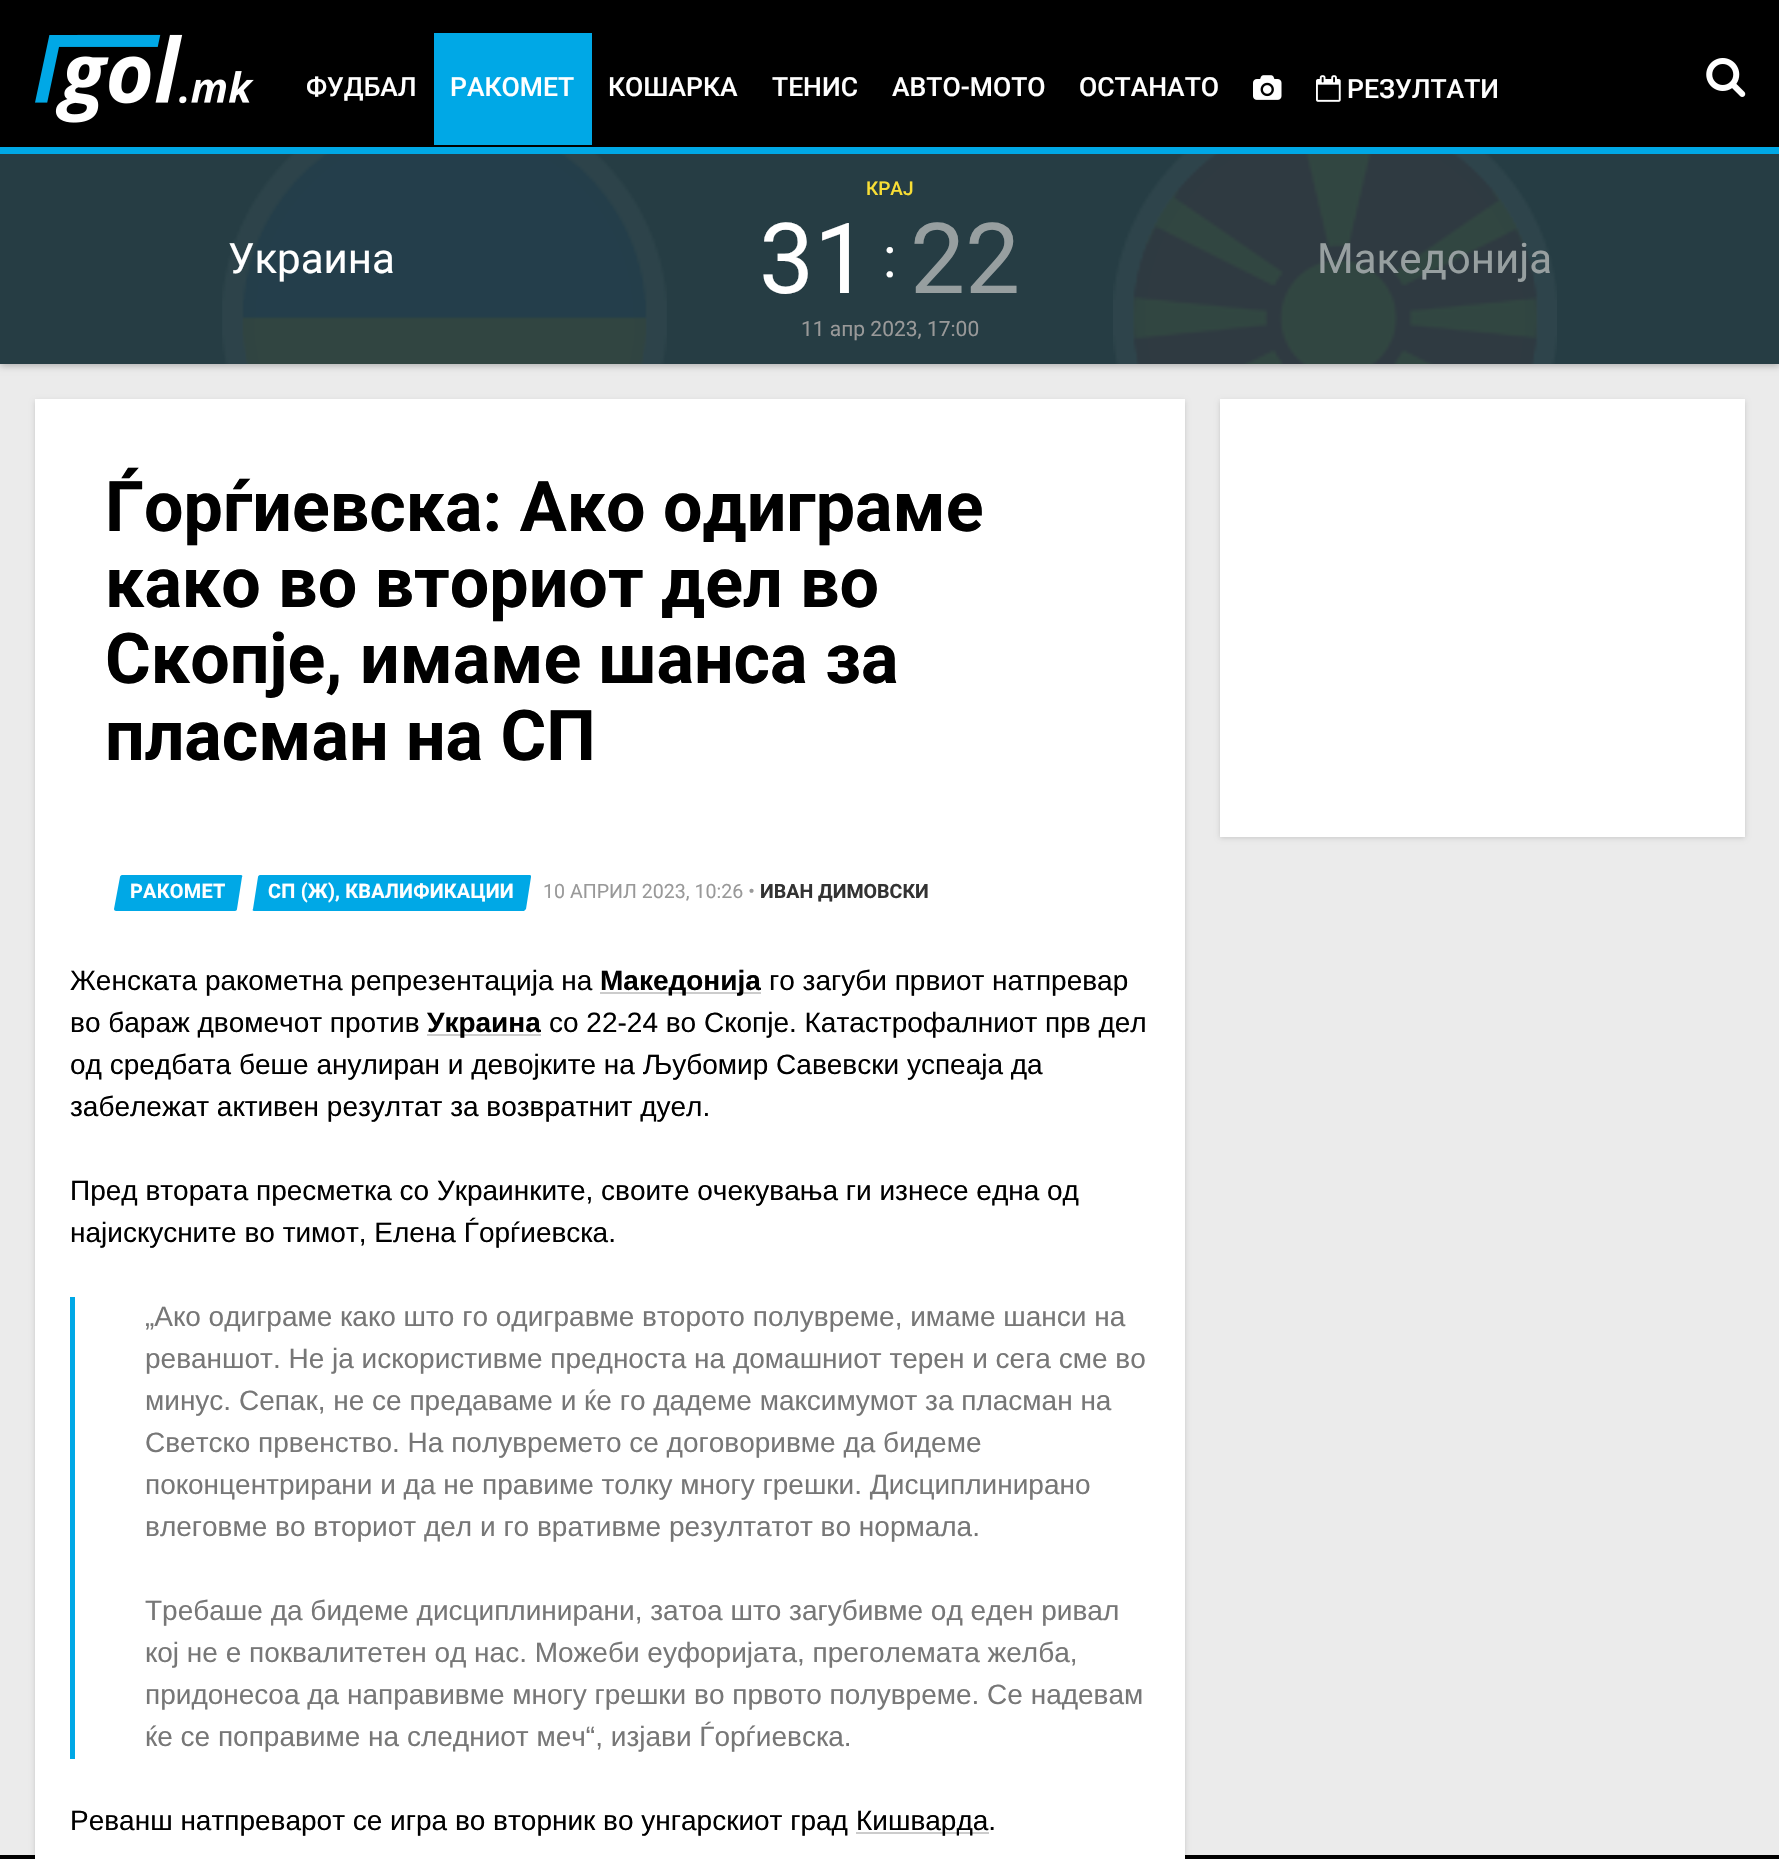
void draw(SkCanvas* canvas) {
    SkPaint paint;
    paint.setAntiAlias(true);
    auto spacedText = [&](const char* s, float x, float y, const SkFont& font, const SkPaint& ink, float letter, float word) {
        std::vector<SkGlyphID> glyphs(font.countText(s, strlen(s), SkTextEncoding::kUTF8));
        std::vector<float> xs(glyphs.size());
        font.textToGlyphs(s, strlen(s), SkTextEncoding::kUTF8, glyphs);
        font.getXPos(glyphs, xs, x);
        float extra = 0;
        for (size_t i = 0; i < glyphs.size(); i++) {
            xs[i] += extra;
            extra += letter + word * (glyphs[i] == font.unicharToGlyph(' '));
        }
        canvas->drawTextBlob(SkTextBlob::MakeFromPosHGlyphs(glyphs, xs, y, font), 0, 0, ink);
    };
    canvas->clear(0xFFEBEBEB);
    paint.setColor(0xFF000000);
    canvas->drawRect(SkRect::MakeXYWH(0, 0, 1779, 147), paint);
    canvas->drawImageRect(SkImages::DeferredFromEncodedData(SkData::MakeFromFileName("img1.png")), SkRect::MakeXYWH(35, 34, 219, 89), SkSamplingOptions());
    SkFont font1(fontMgr->matchFamilyStyle("Roboto", SkFontStyle(500, SkFontStyle::kNormal_Width, SkFontStyle::kUpright_Slant)), 26.5f);
    font1.setSubpixel(true);
    paint.setColor(0xFFFFFFFF);
    canvas->drawString("ФУДБАЛ", 306, 96, font1, paint);
    paint.setColor(0x40000000);
    paint.setMaskFilter(SkMaskFilter::MakeBlur(kNormal_SkBlurStyle, 3.5f));
    canvas->drawRect(SkRect::MakeXYWH(0, 149, 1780, 217), paint);
    paint.setMaskFilter(nullptr);
    paint.setColor(0xFF00A8E6);
    canvas->drawRect(SkRect::MakeXYWH(434, 33, 158, 112), paint);
    paint.setColor(0xFFFFFFFF);
    canvas->drawString("РАКОМЕТ", 450, 96, font1, paint);
    canvas->drawString("КОШАРКА", 608, 96, font1, paint);
    canvas->drawString("ТЕНИС", 772, 96, font1, paint);
    canvas->drawString("АВТО-МОТО", 892, 96, font1, paint);
    canvas->drawString("ОСТАНАТО", 1079, 96, font1, paint);
    canvas->drawImageRect(SkImages::DeferredFromEncodedData(SkData::MakeFromFileName("img2.png")), SkRect::MakeXYWH(1253, 75, 29, 25), SkSamplingOptions());
    canvas->drawImageRect(SkImages::DeferredFromEncodedData(SkData::MakeFromFileName("img3.png")), SkRect::MakeXYWH(1316, 75, 25, 27), SkSamplingOptions());
    canvas->drawString("РЕЗУЛТАТИ", 1347, 98, font1, paint);
    canvas->drawImageRect(SkImages::DeferredFromEncodedData(SkData::MakeFromFileName("img4.png")), SkRect::MakeXYWH(1706, 58, 40, 39), SkSamplingOptions());
    paint.setColor(0xFF263D44);
    canvas->drawRect(SkRect::MakeXYWH(0, 154, 1779, 210), paint);
    paint.setColor(0xFF00A8E6);
    canvas->drawRect(SkRect::MakeXYWH(0, 147, 1779, 7), paint);
    canvas->drawImageRect(SkImages::DeferredFromEncodedData(SkData::MakeFromFileName("img5.png")), SkRect::MakeXYWH(222, 154, 445, 210), SkSamplingOptions());
    SkFont font2(fontMgr->matchFamilyStyle("Roboto", SkFontStyle(500, SkFontStyle::kNormal_Width, SkFontStyle::kUpright_Slant)), 19);
    font2.setSubpixel(true);
    paint.setColor(0xFFF8DE35);
    canvas->drawString("КРАЈ", 866, 195, font2, paint);
    SkFont font3(fontMgr->matchFamilyStyle("Roboto", SkFontStyle::Normal()), 98);
    font3.setSubpixel(true);
    paint.setColor(0xFFFFFFFF);
    canvas->drawString("31", 759, 293, font3, paint);
    SkFont font4(fontMgr->matchFamilyStyle("Roboto", SkFontStyle::Normal()), 56);
    font4.setSubpixel(true);
    canvas->drawString(":", 883, 277, font4, paint);
    paint.setColor(0xFF979FA0);
    canvas->drawString("22", 910, 293, font3, paint);
    SkFont font5(fontMgr->matchFamilyStyle("Roboto", SkFontStyle::Normal()), 21);
    font5.setSubpixel(true);
    paint.setColor(0xFF999999);
    canvas->drawString("11 апр 2023, 17:00", 801, 336, font5, paint);
    canvas->drawImageRect(SkImages::DeferredFromEncodedData(SkData::MakeFromFileName("img6.png")), SkRect::MakeXYWH(1113, 154, 444, 210), SkSamplingOptions());
    SkFont font6(fontMgr->matchFamilyStyle("Roboto", SkFontStyle::Normal()), 42);
    font6.setSubpixel(true);
    paint.setColor(0xFFFFFFFF);
    canvas->drawString("Украина", 228, 273, font6, paint);
    paint.setColor(0xFF979FA0);
    canvas->drawString("Македонија", 1317, 273, font6, paint);
    paint.setColor(0xFF000000);
    canvas->drawRect(SkRect::MakeXYWH(0, 1855, 1779, 4), paint);
    paint.setColor(0x26000000);
    paint.setMaskFilter(SkMaskFilter::MakeBlur(kNormal_SkBlurStyle, 2.5f));
    canvas->drawRect(SkRect::MakeXYWH(35, 401, 1150, 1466), paint);
    paint.setMaskFilter(nullptr);
    paint.setColor(0xFFFFFFFF);
    canvas->drawRect(SkRect::MakeXYWH(35, 399, 1150, 1460), paint);
    SkFont font7(fontMgr->matchFamilyStyle("Roboto", SkFontStyle::Bold()), 70);
    font7.setSubpixel(true);
    paint.setColor(0xFF000000);
    canvas->drawString("Ѓорѓиевска: Ако одиграме", 105, 531, font7, paint);
    canvas->drawString("како во вториот дел во", 105, 607, font7, paint);
    canvas->drawString("Скопје, имаме шанса за", 105, 683, font7, paint);
    canvas->drawString("пласман на СП", 105, 760, font7, paint);
    paint.setColor(0xFF00A8E6);
    canvas->drawPath(SkPathBuilder().moveTo(122, 875).lineTo(241, 875).cubicTo(242, 875, 243, 876, 242, 877).lineTo(237, 909).cubicTo(237, 910, 236, 911, 235, 911).lineTo(116, 911).cubicTo(115, 911, 114, 910, 114, 909).lineTo(120, 877).cubicTo(120, 876, 121, 875, 122, 875).close().detach(), paint);
    SkFont font8(fontMgr->matchFamilyStyle("Roboto", SkFontStyle::Bold()), 19.9f);
    font8.setSubpixel(true);
    paint.setColor(0xFFFFFFFF);
    spacedText("РАКОМЕТ", 130, 898, font8, paint, 0.25f, 0);
    paint.setColor(0xFF00A8E6);
    canvas->drawPath(SkPathBuilder().moveTo(260, 875).lineTo(530, 875).cubicTo(531, 875, 531, 876, 531, 877).lineTo(526, 909).cubicTo(525, 910, 524, 911, 524, 911).lineTo(254, 911).cubicTo(253, 911, 252, 910, 253, 909).lineTo(258, 877).cubicTo(258, 876, 259, 875, 260, 875).close().detach(), paint);
    paint.setColor(0xFFFFFFFF);
    spacedText("СП (Ж), КВАЛИФИКАЦИИ", 268, 898, font8, paint, 0.2f, 0);
    SkFont font9(fontMgr->matchFamilyStyle("Roboto", SkFontStyle::Normal()), 19.6f);
    font9.setSubpixel(true);
    paint.setColor(0xFF999999);
    canvas->drawString("10 АПРИЛ 2023, 10:26 •", 543, 898, font9, paint);
    SkFont font10(fontMgr->matchFamilyStyle("Roboto", SkFontStyle::Bold()), 19.6f);
    font10.setSubpixel(true);
    paint.setColor(0xFF333333);
    canvas->drawString("ИВАН ДИМОВСКИ", 760, 898, font10, paint);
    SkFont font11(fontMgr->matchFamilyStyle("Liberation Sans", SkFontStyle::Normal()), 28);
    font11.setSubpixel(true);
    paint.setColor(0xFF000000);
    canvas->drawString("Женската ракометна репрезентација на", 70, 990, font11, paint);
    paint.setColor(0xFFCCCCCC);
    canvas->drawRect(SkRect::MakeXYWH(600, 992, 161, 2), paint);
    SkFont font12(fontMgr->matchFamilyStyle("Liberation Sans", SkFontStyle::Bold()), 28);
    font12.setSubpixel(true);
    paint.setColor(0xFF000000);
    canvas->drawString("Македонија", 600, 990, font12, paint);
    canvas->drawString("го загуби првиот натпревар", 769, 990, font11, paint);
    canvas->drawString("во бараж двомечот против", 70, 1032, font11, paint);
    paint.setColor(0xFFCCCCCC);
    canvas->drawRect(SkRect::MakeXYWH(427, 1034, 114, 2), paint);
    paint.setColor(0xFF000000);
    canvas->drawString("Украина", 427, 1032, font12, paint);
    canvas->drawString("со 22-24 во Скопје. Катастрофалниот прв дел", 549, 1032, font11, paint);
    canvas->drawString("од средбата беше анулиран и девојките на Љубомир Савевски успеаја да", 70, 1074, font11, paint);
    canvas->drawString("забележат активен резултат за возвратнит дуел.", 70, 1116, font11, paint);
    canvas->drawString("Пред втората пресметка со Украинките, своите очекувања ги изнесе една од", 70, 1200, font11, paint);
    canvas->drawString("најискусните во тимот, Елена Ѓорѓиевска.", 70, 1242, font11, paint);
    paint.setColor(0xFF00A8E6);
    canvas->drawRect(SkRect::MakeXYWH(70, 1297, 5, 462), paint);
    paint.setColor(0xFF777777);
    canvas->drawString("„Ако одиграме како што го одигравме второто полувреме, имаме шанси на", 145, 1326, font11, paint);
    canvas->drawString("реваншот. Не ја искористивме предноста на домашниот терен и сега сме во", 145, 1368, font11, paint);
    canvas->drawString("минус. Сепак, не се предаваме и ќе го дадеме максимумот за пласман на", 145, 1410, font11, paint);
    canvas->drawString("Светско првенство. На полувремето се договоривме да бидеме", 145, 1452, font11, paint);
    canvas->drawString("поконцентрирани и да не правиме толку многу грешки. Дисциплинирано", 145, 1494, font11, paint);
    canvas->drawString("влеговме во вториот дел и го вративме резултатот во нормала.", 145, 1536, font11, paint);
    canvas->drawString("Требаше да бидеме дисциплинирани, затоа што загубивме од еден ривал", 145, 1620, font11, paint);
    canvas->drawString("кој не е поквалитетен од нас. Можеби еуфоријата, преголемата желба,", 145, 1662, font11, paint);
    canvas->drawString("придонесоа да направивме многу грешки во првото полувреме. Се надевам", 145, 1704, font11, paint);
    canvas->drawString("ќе се поправиме на следниот меч“, изјави Ѓорѓиевска.", 145, 1746, font11, paint);
    paint.setColor(0xFF000000);
    canvas->drawString("Реванш натпреварот се игра во вторник во унгарскиот град", 70, 1830, font11, paint);
    paint.setColor(0xFFCCCCCC);
    canvas->drawRect(SkRect::MakeXYWH(856, 1832, 133, 2), paint);
    paint.setColor(0xFF000000);
    canvas->drawString("Кишварда.", 856, 1830, font11, paint);
    paint.setColor(0x26000000);
    paint.setMaskFilter(SkMaskFilter::MakeBlur(kNormal_SkBlurStyle, 2.5f));
    canvas->drawRect(SkRect::MakeXYWH(1220, 401, 525, 437), paint);
    paint.setMaskFilter(nullptr);
    paint.setColor(0xFFFFFFFF);
    canvas->drawRect(SkRect::MakeXYWH(1220, 399, 525, 438), paint);
}
